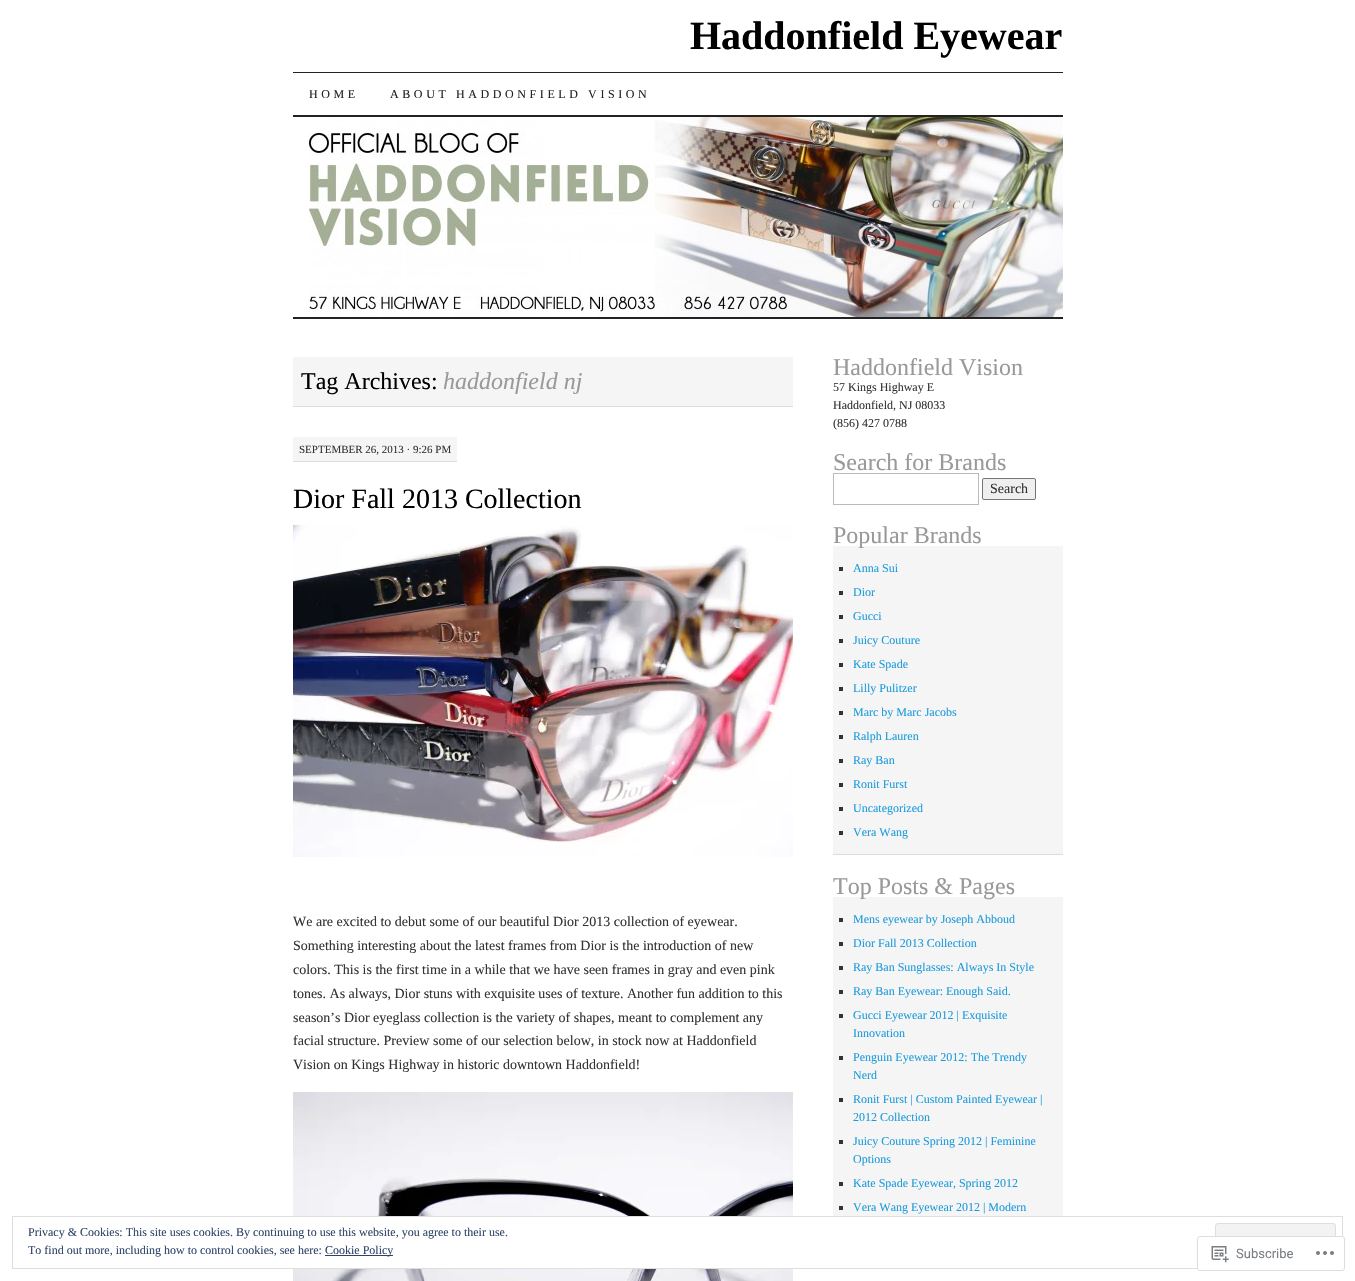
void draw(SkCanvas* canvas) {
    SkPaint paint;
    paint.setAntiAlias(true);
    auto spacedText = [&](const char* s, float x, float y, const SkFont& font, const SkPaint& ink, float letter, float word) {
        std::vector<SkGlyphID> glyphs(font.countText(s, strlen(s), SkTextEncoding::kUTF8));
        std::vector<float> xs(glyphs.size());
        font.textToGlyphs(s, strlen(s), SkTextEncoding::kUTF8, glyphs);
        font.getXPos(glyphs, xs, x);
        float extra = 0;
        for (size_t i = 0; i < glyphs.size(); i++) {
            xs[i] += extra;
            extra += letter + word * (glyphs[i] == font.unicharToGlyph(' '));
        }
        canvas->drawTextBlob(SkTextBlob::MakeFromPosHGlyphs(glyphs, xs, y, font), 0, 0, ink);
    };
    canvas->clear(0xFFFFFFFF);
    SkFont font1(fontMgr->matchFamilyStyle("Liberation Serif", SkFontStyle::Bold()), 40);
    font1.setSubpixel(true);
    paint.setColor(0xFF000000);
    canvas->drawString("Haddonfield Eyewear", 690, 49, font1, paint);
    paint.setColor(0xFF222222);
    canvas->drawRect(SkRect::MakeXYWH(293, 72, 770, 1), paint);
    canvas->drawRect(SkRect::MakeXYWH(293, 115, 770, 2), paint);
    SkFont font2(fontMgr->matchFamilyStyle("Liberation Serif", SkFontStyle::Normal()), 12);
    font2.setSubpixel(true);
    spacedText("HOME", 309, 98, font2, paint, 3.6f, 0);
    spacedText("ABOUT HADDONFIELD VISION", 390, 98, font2, paint, 3.6f, 0);
    canvas->drawImageRect(SkImages::DeferredFromEncodedData(SkData::MakeFromFileName("img1.png")), SkRect::MakeXYWH(308, 117, 755, 200), SkSamplingOptions());
    canvas->drawRect(SkRect::MakeXYWH(293, 317, 770, 2), paint);
    paint.setColor(0xFFF5F5F5);
    canvas->drawRect(SkRect::MakeXYWH(293, 357, 500, 49), paint);
    paint.setColor(0xFFDDDDDD);
    canvas->drawRect(SkRect::MakeXYWH(293, 406, 500, 1), paint);
    SkFont font3(fontMgr->matchFamilyStyle("Liberation Serif", SkFontStyle::Normal()), 24);
    font3.setSubpixel(true);
    paint.setColor(0xFF000000);
    canvas->drawString("Tag Archives:", 301, 389, font3, paint);
    SkFont font4(fontMgr->matchFamilyStyle("Liberation Serif", SkFontStyle::Italic()), 24);
    font4.setSubpixel(true);
    paint.setColor(0xFF999999);
    canvas->drawString("haddonfield nj", 443, 389, font4, paint);
    paint.setColor(0xFFF5F5F5);
    canvas->drawRect(SkRect::MakeXYWH(293, 437, 164, 24), paint);
    paint.setColor(0xFFDDDDDD);
    canvas->drawRect(SkRect::MakeXYWH(293, 461, 164, 1), paint);
    SkFont font5(fontMgr->matchFamilyStyle("Liberation Serif", SkFontStyle::Normal()), 11);
    font5.setSubpixel(true);
    paint.setColor(0xFF333333);
    canvas->drawString("SEPTEMBER 26, 2013 · 9:26 PM", 299, 453, font5, paint);
    SkFont font6(fontMgr->matchFamilyStyle("Liberation Serif", SkFontStyle::Normal()), 28);
    font6.setSubpixel(true);
    paint.setColor(0xFF000000);
    canvas->drawString("Dior Fall 2013 Collection", 293, 508, font6, paint);
    canvas->drawImageRect(SkImages::DeferredFromEncodedData(SkData::MakeFromFileName("img2.png")), SkRect::MakeXYWH(293, 525, 500, 332), SkSamplingOptions());
    SkFont font7(fontMgr->matchFamilyStyle("Liberation Serif", SkFontStyle::Normal()), 14);
    font7.setSubpixel(true);
    paint.setColor(0xFF333333);
    canvas->drawString("We are excited to debut some of our beautiful Dior 2013 collection of eyewear.", 293, 926, font7, paint);
    canvas->drawString("Something interesting about the latest frames from Dior is the introduction of new", 293, 950, font7, paint);
    canvas->drawString("colors. This is the first time in a while that we have seen frames in gray and even pink", 293, 974, font7, paint);
    canvas->drawString("tones. As always, Dior stuns with exquisite uses of texture. Another fun addition to this", 293, 998, font7, paint);
    canvas->drawString("season’s Dior eyeglass collection is the variety of shapes, meant to complement any", 293, 1022, font7, paint);
    canvas->drawString("facial structure. Preview some of our selection below, in stock now at Haddonfield", 293, 1045, font7, paint);
    canvas->drawString("Vision on Kings Highway in historic downtown Haddonfield!", 293, 1069, font7, paint);
    canvas->drawImageRect(SkImages::DeferredFromEncodedData(SkData::MakeFromFileName("img3.png")), SkRect::MakeXYWH(293, 1092, 500, 189), SkSamplingOptions());
    paint.setColor(0xFF999999);
    canvas->drawString("Haddonfield Vision", 833, 375, font3, paint);
    paint.setColor(0xFF333333);
    canvas->drawString("57 Kings Highway E", 833, 391, font2, paint);
    canvas->drawString("Haddonfield, NJ 08033", 833, 409, font2, paint);
    canvas->drawString("(856) 427 0788", 833, 427, font2, paint);
    paint.setColor(0xFF999999);
    canvas->drawString("Search for Brands", 833, 470, font3, paint);
    paint.setStyle(SkPaint::kStroke_Style);
    paint.setStrokeWidth(1);
    paint.setColor(0xFFBBBBBB);
    canvas->drawRect(SkRect::MakeXYWH(833.5f, 473.5f, 145, 31), paint);
    paint.setStyle(SkPaint::kFill_Style);
    paint.setColor(0xFFEFEFEF);
    canvas->drawRoundRect(SkRect::MakeXYWH(982.5f, 478.5f, 53, 21), 1.5f, 1.5f, paint);
    paint.setStyle(SkPaint::kStroke_Style);
    paint.setColor(0xFF767676);
    canvas->drawRoundRect(SkRect::MakeXYWH(982.5f, 478.5f, 53, 21), 1.5f, 1.5f, paint);
    paint.setStyle(SkPaint::kFill_Style);
    paint.setColor(0xFF333333);
    canvas->drawString("Search", 990, 493, font7, paint);
    paint.setColor(0xFFF5F5F5);
    canvas->drawRect(SkRect::MakeXYWH(833, 546, 230, 308), paint);
    paint.setColor(0xFF999999);
    canvas->drawString("Popular Brands", 833, 543, font3, paint);
    paint.setColor(0xFFDDDDDD);
    canvas->drawRect(SkRect::MakeXYWH(833, 854, 230, 1), paint);
    paint.setColor(0xFF333333);
    canvas->drawRect(SkRect::MakeXYWH(839, 567, 4, 4), paint);
    paint.setColor(0xFF1C9BDC);
    canvas->drawString("Anna Sui", 853, 572, font2, paint);
    paint.setColor(0xFF333333);
    canvas->drawRect(SkRect::MakeXYWH(839, 591, 4, 4), paint);
    paint.setColor(0xFF1C9BDC);
    canvas->drawString("Dior", 853, 596, font2, paint);
    paint.setColor(0xFF333333);
    canvas->drawRect(SkRect::MakeXYWH(839, 615, 4, 4), paint);
    paint.setColor(0xFF1C9BDC);
    canvas->drawString("Gucci", 853, 620, font2, paint);
    paint.setColor(0xFF333333);
    canvas->drawRect(SkRect::MakeXYWH(839, 639, 4, 4), paint);
    paint.setColor(0xFF1C9BDC);
    canvas->drawString("Juicy Couture", 853, 644, font2, paint);
    paint.setColor(0xFF333333);
    canvas->drawRect(SkRect::MakeXYWH(839, 663, 4, 4), paint);
    paint.setColor(0xFF1C9BDC);
    canvas->drawString("Kate Spade", 853, 668, font2, paint);
    paint.setColor(0xFF333333);
    canvas->drawRect(SkRect::MakeXYWH(839, 687, 4, 4), paint);
    paint.setColor(0xFF1C9BDC);
    canvas->drawString("Lilly Pulitzer", 853, 692, font2, paint);
    paint.setColor(0xFF333333);
    canvas->drawRect(SkRect::MakeXYWH(839, 711, 4, 4), paint);
    paint.setColor(0xFF1C9BDC);
    canvas->drawString("Marc by Marc Jacobs", 853, 716, font2, paint);
    paint.setColor(0xFF333333);
    canvas->drawRect(SkRect::MakeXYWH(839, 735, 4, 4), paint);
    paint.setColor(0xFF1C9BDC);
    canvas->drawString("Ralph Lauren", 853, 740, font2, paint);
    paint.setColor(0xFF333333);
    canvas->drawRect(SkRect::MakeXYWH(839, 759, 4, 4), paint);
    paint.setColor(0xFF1C9BDC);
    canvas->drawString("Ray Ban", 853, 764, font2, paint);
    paint.setColor(0xFF333333);
    canvas->drawRect(SkRect::MakeXYWH(839, 783, 4, 4), paint);
    paint.setColor(0xFF1C9BDC);
    canvas->drawString("Ronit Furst", 853, 788, font2, paint);
    paint.setColor(0xFF333333);
    canvas->drawRect(SkRect::MakeXYWH(839, 807, 4, 4), paint);
    paint.setColor(0xFF1C9BDC);
    canvas->drawString("Uncategorized", 853, 812, font2, paint);
    paint.setColor(0xFF333333);
    canvas->drawRect(SkRect::MakeXYWH(839, 831, 4, 4), paint);
    paint.setColor(0xFF1C9BDC);
    canvas->drawString("Vera Wang", 853, 836, font2, paint);
    paint.setColor(0xFFF5F5F5);
    canvas->drawRect(SkRect::MakeXYWH(833, 897, 230, 319), paint);
    paint.setColor(0xFF999999);
    canvas->drawString("Top Posts & Pages", 833, 894, font3, paint);
    paint.setColor(0xFF333333);
    canvas->drawRect(SkRect::MakeXYWH(839, 918, 4, 4), paint);
    paint.setColor(0xFF1C9BDC);
    canvas->drawString("Mens eyewear by Joseph Abboud", 853, 923, font2, paint);
    paint.setColor(0xFF333333);
    canvas->drawRect(SkRect::MakeXYWH(839, 942, 4, 4), paint);
    paint.setColor(0xFF1C9BDC);
    canvas->drawString("Dior Fall 2013 Collection", 853, 947, font2, paint);
    paint.setColor(0xFF333333);
    canvas->drawRect(SkRect::MakeXYWH(839, 966, 4, 4), paint);
    paint.setColor(0xFF1C9BDC);
    canvas->drawString("Ray Ban Sunglasses: Always In Style", 853, 971, font2, paint);
    paint.setColor(0xFF333333);
    canvas->drawRect(SkRect::MakeXYWH(839, 990, 4, 4), paint);
    paint.setColor(0xFF1C9BDC);
    canvas->drawString("Ray Ban Eyewear: Enough Said.", 853, 995, font2, paint);
    paint.setColor(0xFF333333);
    canvas->drawRect(SkRect::MakeXYWH(839, 1014, 4, 4), paint);
    paint.setColor(0xFF1C9BDC);
    canvas->drawString("Gucci Eyewear 2012 | Exquisite", 853, 1019, font2, paint);
    canvas->drawString("Innovation", 853, 1037, font2, paint);
    paint.setColor(0xFF333333);
    canvas->drawRect(SkRect::MakeXYWH(839, 1056, 4, 4), paint);
    paint.setColor(0xFF1C9BDC);
    canvas->drawString("Penguin Eyewear 2012: The Trendy", 853, 1061, font2, paint);
    canvas->drawString("Nerd", 853, 1079, font2, paint);
    paint.setColor(0xFF333333);
    canvas->drawRect(SkRect::MakeXYWH(839, 1098, 4, 4), paint);
    paint.setColor(0xFF1C9BDC);
    canvas->drawString("Ronit Furst | Custom Painted Eyewear |", 853, 1103, font2, paint);
    canvas->drawString("2012 Collection", 853, 1121, font2, paint);
    paint.setColor(0xFF333333);
    canvas->drawRect(SkRect::MakeXYWH(839, 1140, 4, 4), paint);
    paint.setColor(0xFF1C9BDC);
    canvas->drawString("Juicy Couture Spring 2012 | Feminine", 853, 1145, font2, paint);
    canvas->drawString("Options", 853, 1163, font2, paint);
    paint.setColor(0xFF333333);
    canvas->drawRect(SkRect::MakeXYWH(839, 1182, 4, 4), paint);
    paint.setColor(0xFF1C9BDC);
    canvas->drawString("Kate Spade Eyewear, Spring 2012", 853, 1187, font2, paint);
    paint.setColor(0xFF333333);
    canvas->drawRect(SkRect::MakeXYWH(839, 1206, 4, 4), paint);
    paint.setColor(0xFF1C9BDC);
    canvas->drawString("Vera Wang Eyewear 2012 | Modern", 853, 1211, font2, paint);
    paint.setColor(0xFFFFFFFF);
    canvas->drawRect(SkRect::MakeXYWH(293, 1217, 500, 51), paint);
    paint.setStyle(SkPaint::kStroke_Style);
    paint.setColor(0xFFDEDEDE);
    canvas->drawRect(SkRect::MakeXYWH(12.5f, 1216.5f, 1330, 52), paint);
    paint.setStyle(SkPaint::kFill_Style);
    paint.setColor(0xFF2E4467);
    canvas->drawString("Privacy & Cookies: This site uses cookies. By continuing to use this website, you agree to their use.", 28, 1236, font2, paint);
    paint.setColor(0xFFF3F3F3);
    canvas->drawRoundRect(SkRect::MakeXYWH(1215.5f, 1223.5f, 120, 38), 2.5f, 2.5f, paint);
    paint.setStyle(SkPaint::kStroke_Style);
    paint.setColor(0xFFDEDEDE);
    canvas->drawRoundRect(SkRect::MakeXYWH(1215.5f, 1223.5f, 120, 38), 2.5f, 2.5f, paint);
    paint.setStyle(SkPaint::kFill_Style);
    paint.setColor(0xFF2E4467);
    canvas->drawString("To find out more, including how to control cookies, see here:", 28, 1254, font2, paint);
    canvas->drawRect(SkRect::MakeXYWH(325, 1255, 68, 1), paint);
    canvas->drawString("Cookie Policy", 325, 1254, font2, paint);
    paint.setColor(0xFAFFFFFF);
    canvas->drawRoundRect(SkRect::MakeXYWH(1197, 1236, 148, 35), 3, 3, paint);
    paint.setStyle(SkPaint::kStroke_Style);
    paint.setColor(0xFADCDCDE);
    canvas->drawRoundRect(SkRect::MakeXYWH(1197.5f, 1236.5f, 147, 34), 2.5f, 2.5f, paint);
    canvas->drawImageRect(SkImages::DeferredFromEncodedData(SkData::MakeFromFileName("img4.png")), SkRect::MakeXYWH(1211, 1246, 18, 17), SkSamplingOptions());
    SkFont font8(fontMgr->matchFamilyStyle("Roboto", SkFontStyle::Normal()), 13);
    font8.setSubpixel(true);
    paint.setStyle(SkPaint::kFill_Style);
    paint.setColor(0xFF7A7E84);
    canvas->drawString("Subscribe", 1236, 1258, font8, paint);
    canvas->drawImageRect(SkImages::DeferredFromEncodedData(SkData::MakeFromFileName("img5.png")), SkRect::MakeXYWH(1316, 1251, 18, 4), SkSamplingOptions());
}
